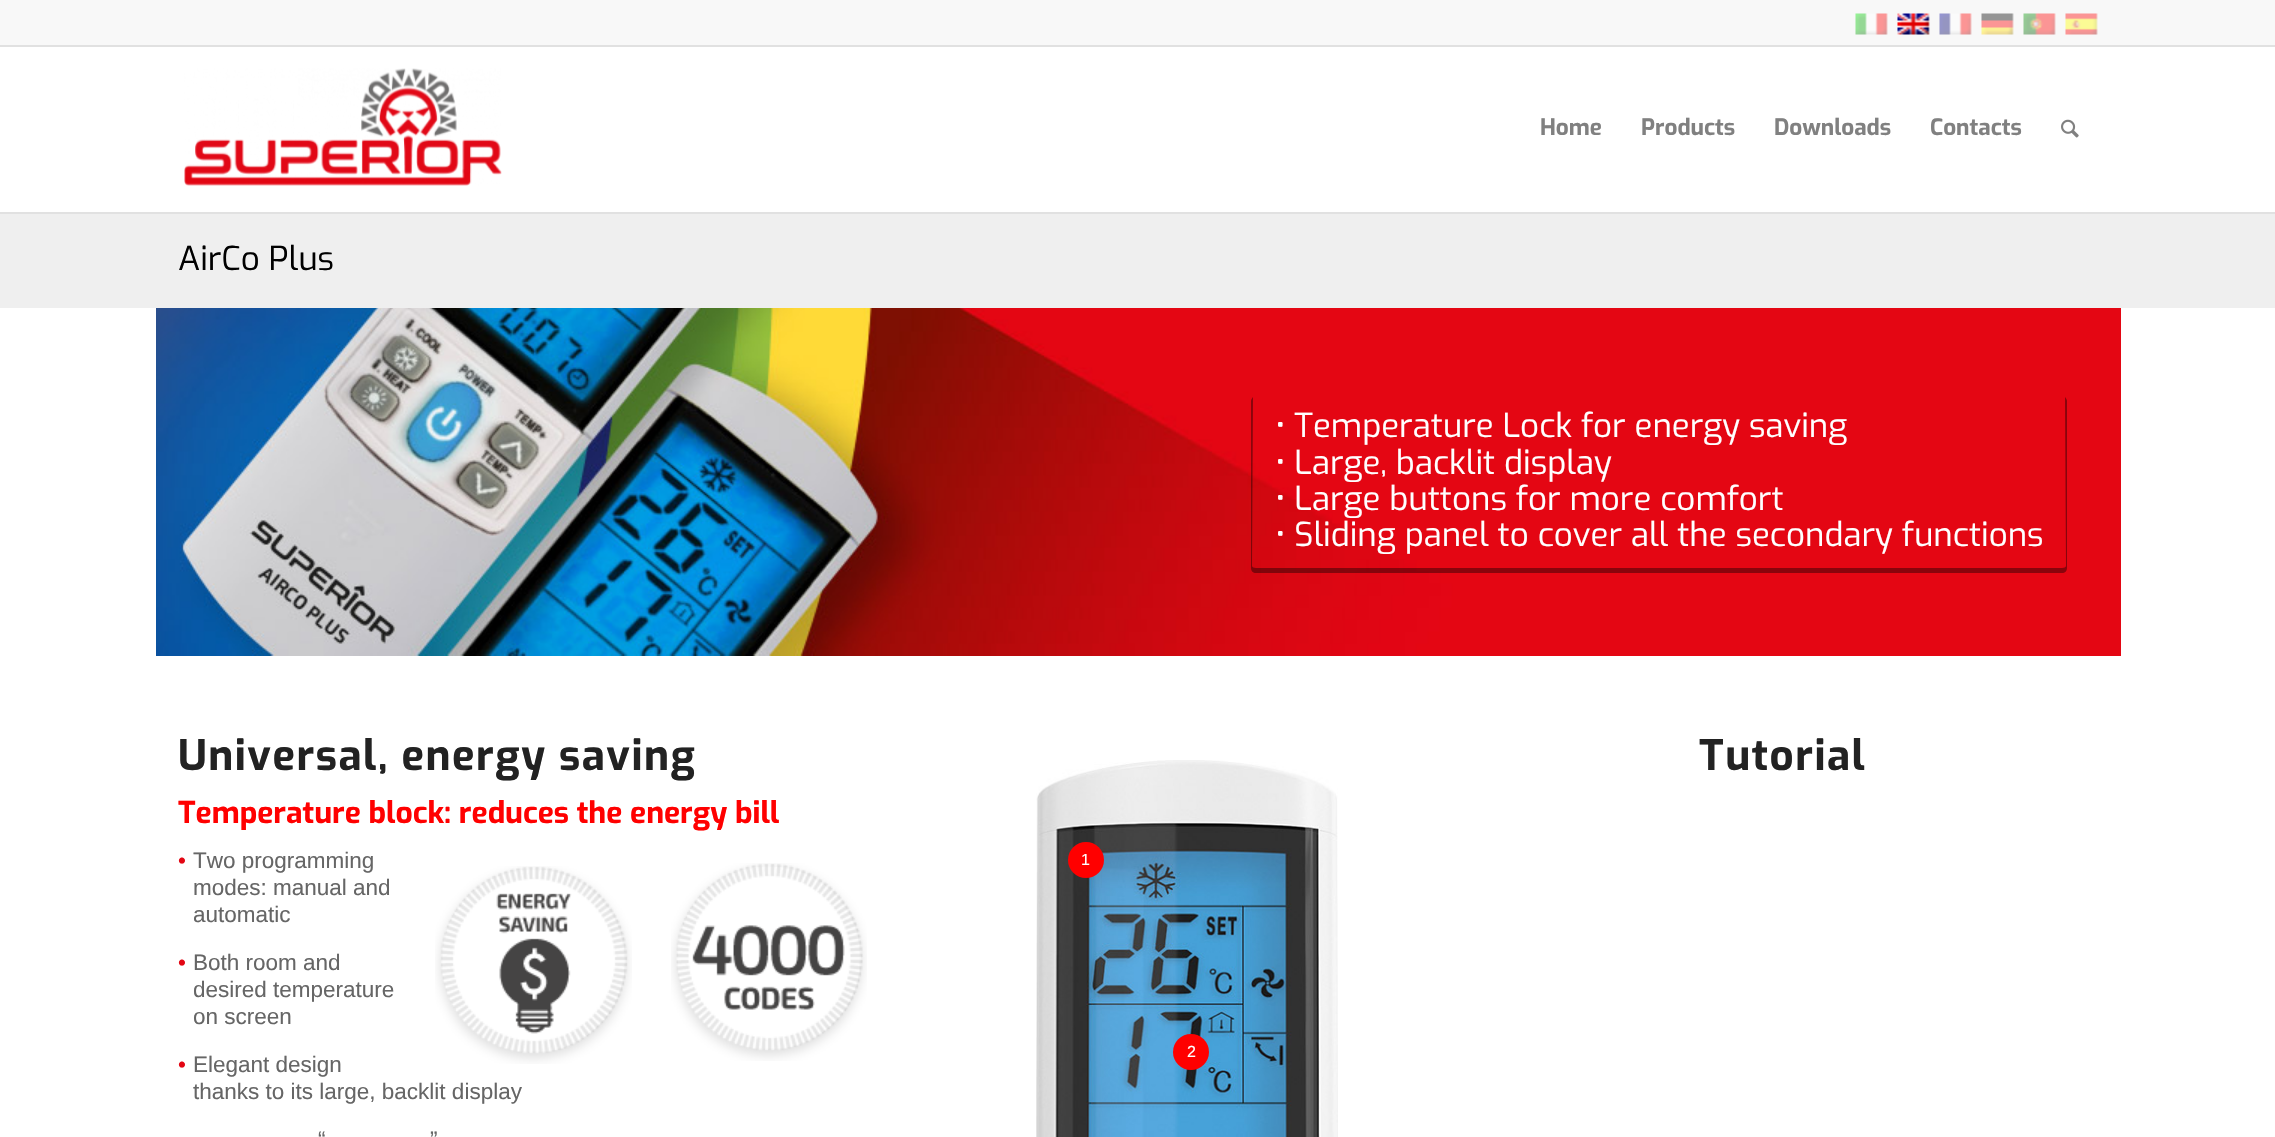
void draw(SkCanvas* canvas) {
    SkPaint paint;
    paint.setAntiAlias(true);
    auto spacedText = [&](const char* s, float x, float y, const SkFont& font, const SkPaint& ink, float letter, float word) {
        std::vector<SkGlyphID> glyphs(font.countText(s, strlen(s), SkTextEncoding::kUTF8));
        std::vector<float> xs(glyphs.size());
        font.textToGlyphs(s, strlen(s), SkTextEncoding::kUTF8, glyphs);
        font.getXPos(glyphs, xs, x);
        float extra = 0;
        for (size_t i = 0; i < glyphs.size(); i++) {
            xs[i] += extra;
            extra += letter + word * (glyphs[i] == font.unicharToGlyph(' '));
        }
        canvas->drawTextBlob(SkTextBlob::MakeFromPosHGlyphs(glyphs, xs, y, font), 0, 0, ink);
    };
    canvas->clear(0xFFFFFFFF);
    paint.setColor(0xFFF8F8F8);
    canvas->drawRect(SkRect::MakeXYWH(0, 0, 2275, 45), paint);
    paint.setColor(0xFFE1E1E1);
    canvas->drawRect(SkRect::MakeXYWH(0, 45, 2275, 2), paint);
    canvas->drawImageRect(SkImages::DeferredFromEncodedData(SkData::MakeFromFileName("img1.png")), SkRect::MakeXYWH(1855, 13, 33, 22), SkSamplingOptions());
    canvas->drawImageRect(SkImages::DeferredFromEncodedData(SkData::MakeFromFileName("img2.png")), SkRect::MakeXYWH(1897, 13, 33, 22), SkSamplingOptions());
    canvas->drawImageRect(SkImages::DeferredFromEncodedData(SkData::MakeFromFileName("img3.png")), SkRect::MakeXYWH(1939, 13, 33, 22), SkSamplingOptions());
    canvas->drawImageRect(SkImages::DeferredFromEncodedData(SkData::MakeFromFileName("img4.png")), SkRect::MakeXYWH(1981, 13, 33, 22), SkSamplingOptions());
    canvas->drawImageRect(SkImages::DeferredFromEncodedData(SkData::MakeFromFileName("img5.png")), SkRect::MakeXYWH(2023, 13, 33, 22), SkSamplingOptions());
    canvas->drawImageRect(SkImages::DeferredFromEncodedData(SkData::MakeFromFileName("img6.png")), SkRect::MakeXYWH(2065, 13, 33, 22), SkSamplingOptions());
    canvas->drawRect(SkRect::MakeXYWH(0, 212, 2275, 2), paint);
    canvas->drawImageRect(SkImages::DeferredFromEncodedData(SkData::MakeFromFileName("img7.png")), SkRect::MakeXYWH(184, 68, 318, 118), SkSamplingOptions());
    SkFont font1(fontMgr->matchFamilyStyle("Exo", SkFontStyle::Bold()), 22.5f);
    font1.setSubpixel(true);
    paint.setColor(0xFF808080);
    canvas->drawString("Home", 1540, 135, font1, paint);
    canvas->drawString("Products", 1641, 135, font1, paint);
    canvas->drawString("Downloads", 1774, 135, font1, paint);
    canvas->drawString("Contacts", 1930, 135, font1, paint);
    canvas->drawImageRect(SkImages::DeferredFromEncodedData(SkData::MakeFromFileName("img8.png")), SkRect::MakeXYWH(2061, 119, 18, 19), SkSamplingOptions());
    paint.setColor(0xFFEFEFEF);
    canvas->drawRect(SkRect::MakeXYWH(0, 214, 2275, 94), paint);
    SkFont font2(fontMgr->matchFamilyStyle("Exo", SkFontStyle::Normal()), 33);
    font2.setSubpixel(true);
    paint.setColor(0xFF000000);
    canvas->drawString("AirCo Plus", 178, 270, font2, paint);
    canvas->drawImageRect(SkImages::DeferredFromEncodedData(SkData::MakeFromFileName("img9.png")), SkRect::MakeXYWH(156, 308, 1965, 348), SkSamplingOptions());
    paint.setColor(0x66000000);
    canvas->drawPath(SkPathBuilder().moveTo(1253, 397).cubicTo(1252, 398, 1251, 400, 1251, 401).lineTo(1251, 568).cubicTo(1251, 571, 1253, 573, 1256, 573).lineTo(2062, 573).cubicTo(2065, 573, 2067, 571, 2067, 568).lineTo(2067, 401).cubicTo(2067, 400, 2066, 398, 2065, 397).lineTo(2066, 566).cubicTo(2066, 567, 2064, 568, 2062, 568).lineTo(1256, 568).cubicTo(1254, 568, 1252, 567, 1252, 566).close().detach(), paint);
    paint.setColor(0xFFFFFFFF);
    canvas->drawString("• Temperature Lock for energy saving", 1275, 437, font2, paint);
    canvas->drawString("• Large, backlit display", 1275, 474, font2, paint);
    canvas->drawString("• Large buttons for more comfort", 1275, 510, font2, paint);
    canvas->drawString("• Sliding panel to cover all the secondary functions", 1275, 546, font2, paint);
    SkFont font3(fontMgr->matchFamilyStyle("Exo", SkFontStyle::Bold()), 42);
    font3.setSubpixel(true);
    paint.setColor(0xFF222222);
    spacedText("Universal, energy saving", 178, 770, font3, paint, 1.5f, 0);
    SkFont font4(fontMgr->matchFamilyStyle("Exo", SkFontStyle::Bold()), 30);
    font4.setSubpixel(true);
    paint.setColor(0xFFFF0000);
    canvas->drawString("Temperature block: reduces the energy bill", 178, 823, font4, paint);
    SkFont font5(fontMgr->matchFamilyStyle("Liberation Sans", SkFontStyle::Normal()), 22.5f);
    font5.setSubpixel(true);
    paint.setColor(0xFFE30613);
    canvas->drawString("•", 178, 868, font5, paint);
    paint.setColor(0xFF666666);
    canvas->drawString("Two programming", 193, 868, font5, paint);
    canvas->drawString("modes: manual and", 193, 895, font5, paint);
    canvas->drawString("automatic", 193, 922, font5, paint);
    paint.setColor(0xFFE30613);
    canvas->drawString("•", 178, 970, font5, paint);
    paint.setColor(0xFF666666);
    canvas->drawString("Both room and", 193, 970, font5, paint);
    canvas->drawString("desired temperature", 193, 997, font5, paint);
    canvas->drawString("on screen", 193, 1024, font5, paint);
    paint.setColor(0xFFE30613);
    canvas->drawString("•", 178, 1072, font5, paint);
    paint.setColor(0xFF666666);
    canvas->drawString("Elegant design", 193, 1072, font5, paint);
    canvas->drawString("thanks to its large, backlit display", 193, 1099, font5, paint);
    canvas->drawString("“", 318, 1147, font5, paint);
    canvas->drawString("”", 430, 1147, font5, paint);
    canvas->drawImageRect(SkImages::DeferredFromEncodedData(SkData::MakeFromFileName("img10.png")), SkRect::MakeXYWH(435, 866, 197, 198), SkSamplingOptions());
    canvas->drawImageRect(SkImages::DeferredFromEncodedData(SkData::MakeFromFileName("img11.png")), SkRect::MakeXYWH(671, 863, 196, 198), SkSamplingOptions());
    paint.setColor(0xFF222222);
    spacedText("Tutorial", 1699, 770, font3, paint, 1.5f, 0);
    canvas->drawImageRect(SkImages::DeferredFromEncodedData(SkData::MakeFromFileName("img12.png")), SkRect::MakeXYWH(1036, 760, 302, 377), SkSamplingOptions());
    paint.setColor(0xFFFF0000);
    canvas->drawCircle(1086, 860, 18, paint);
    SkFont font6(fontMgr->matchFamilyStyle("Liberation Sans", SkFontStyle::Normal()), 16);
    font6.setSubpixel(true);
    paint.setColor(0xFFFFFFFF);
    canvas->drawString("1", 1081, 865, font6, paint);
    paint.setColor(0xFFFF0000);
    canvas->drawCircle(1191, 1052, 18, paint);
    paint.setColor(0xFFFFFFFF);
    canvas->drawString("2", 1187, 1057, font6, paint);
}
